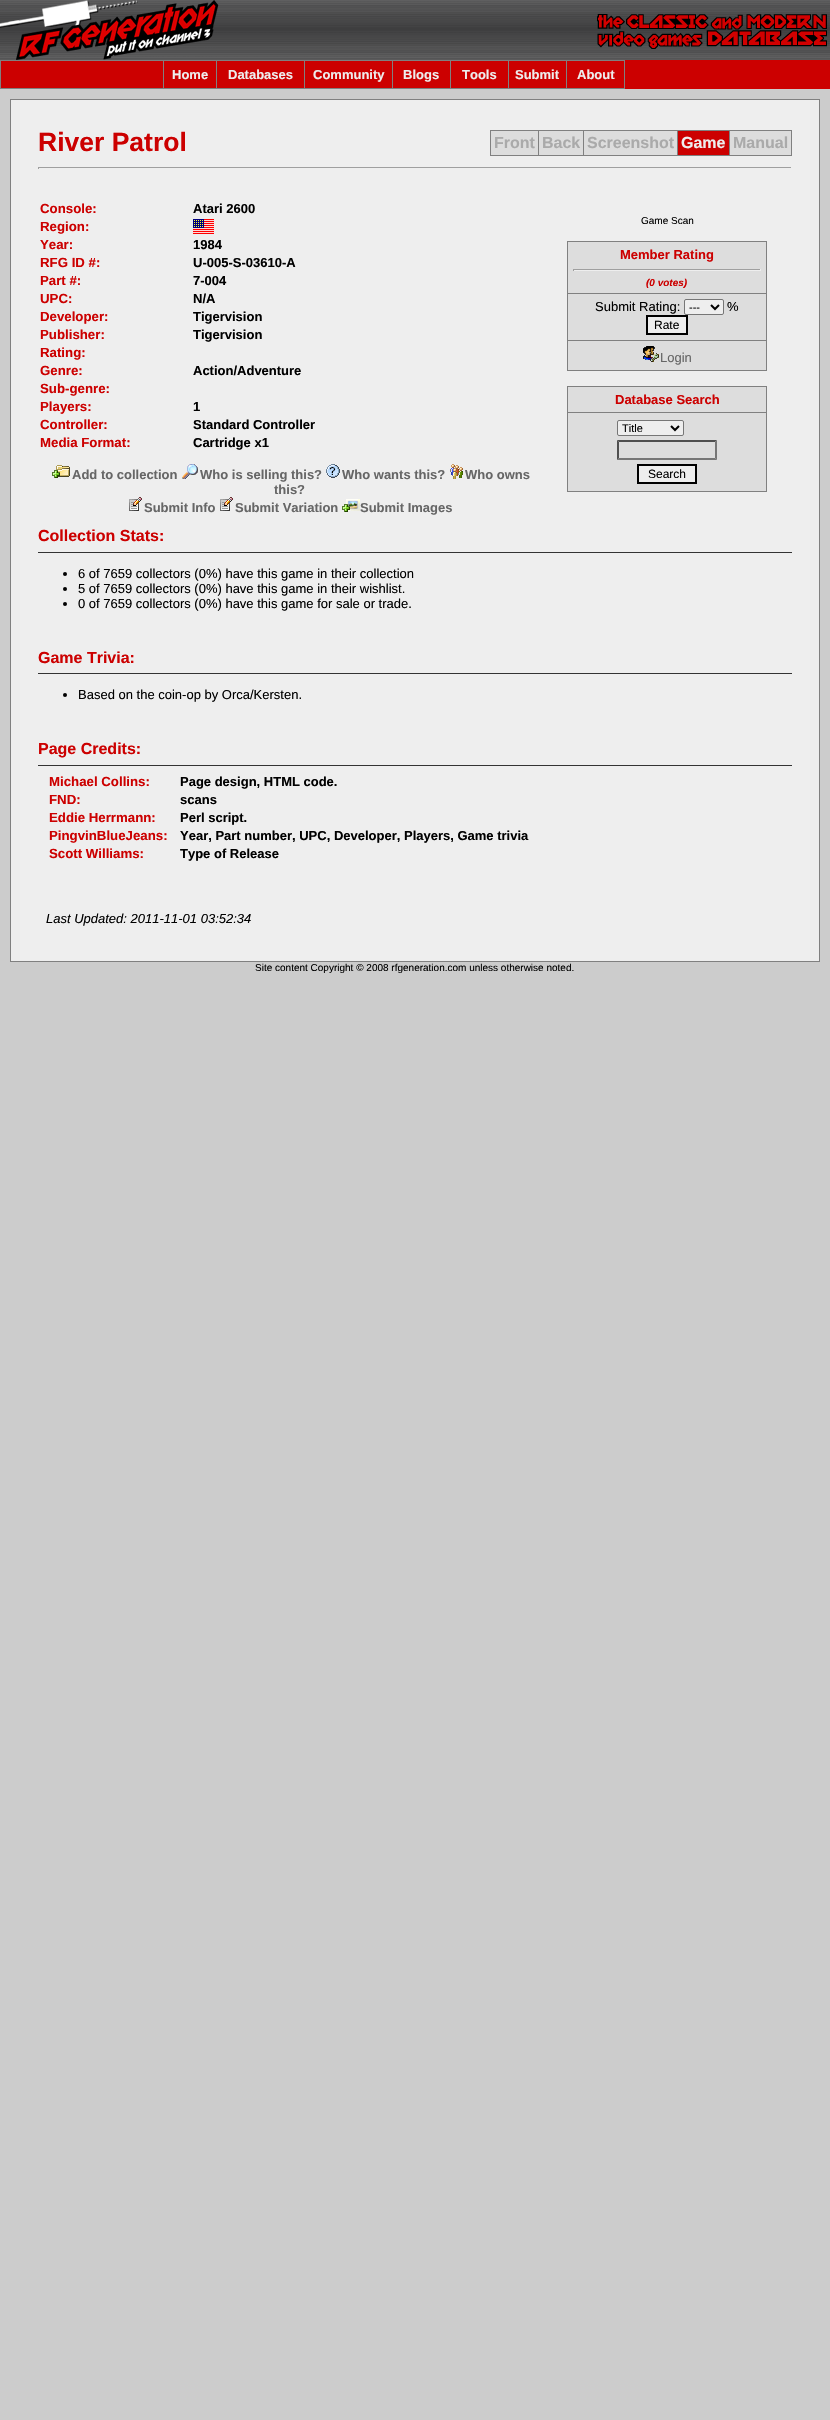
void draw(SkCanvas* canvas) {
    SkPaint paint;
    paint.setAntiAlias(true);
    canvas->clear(0xFFCCCCCC);
    canvas->drawImageRect(SkImages::DeferredFromEncodedData(SkData::MakeFromFileName("img1.png")), SkRect::MakeXYWH(219, 0, 611, 60), SkSamplingOptions());
    canvas->drawImageRect(SkImages::DeferredFromEncodedData(SkData::MakeFromFileName("img2.png")), SkRect::MakeXYWH(0, 0, 219, 60), SkSamplingOptions());
    canvas->drawImageRect(SkImages::DeferredFromEncodedData(SkData::MakeFromFileName("img3.png")), SkRect::MakeXYWH(597, 14, 230, 35), SkSamplingOptions());
    paint.setColor(0xFFCC0000);
    canvas->drawRect(SkRect::MakeXYWH(625, 60, 205, 29), paint);
    paint.setColor(0xFF808080);
    canvas->drawRect(SkRect::MakeXYWH(0, 60, 625, 29), paint);
    paint.setColor(0xFFCC0000);
    canvas->drawRect(SkRect::MakeXYWH(1, 61, 162, 27), paint);
    canvas->drawRect(SkRect::MakeXYWH(164, 61, 52, 27), paint);
    SkFont font1(fontMgr->matchFamilyStyle("Liberation Sans", SkFontStyle::Bold()), 13);
    font1.setSubpixel(true);
    paint.setColor(0xFFEEEEEE);
    canvas->drawString("Home", 172, 79, font1, paint);
    paint.setColor(0xFFCC0000);
    canvas->drawRect(SkRect::MakeXYWH(217, 61, 87, 27), paint);
    paint.setColor(0xFFEEEEEE);
    canvas->drawString("Databases", 228, 79, font1, paint);
    paint.setColor(0xFFCC0000);
    canvas->drawRect(SkRect::MakeXYWH(305, 61, 87, 27), paint);
    paint.setColor(0xFFEEEEEE);
    canvas->drawString("Community", 313, 79, font1, paint);
    paint.setColor(0xFFCC0000);
    canvas->drawRect(SkRect::MakeXYWH(393, 61, 57, 27), paint);
    paint.setColor(0xFFEEEEEE);
    canvas->drawString("Blogs", 403, 79, font1, paint);
    paint.setColor(0xFFCC0000);
    canvas->drawRect(SkRect::MakeXYWH(451, 61, 57, 27), paint);
    paint.setColor(0xFFEEEEEE);
    canvas->drawString("Tools", 462, 79, font1, paint);
    paint.setColor(0xFFCC0000);
    canvas->drawRect(SkRect::MakeXYWH(509, 61, 57, 27), paint);
    paint.setColor(0xFFEEEEEE);
    canvas->drawString("Submit", 515, 79, font1, paint);
    paint.setColor(0xFFCC0000);
    canvas->drawRect(SkRect::MakeXYWH(567, 61, 57, 27), paint);
    paint.setColor(0xFFEEEEEE);
    canvas->drawString("About", 577, 79, font1, paint);
    paint.setColor(0xFF808080);
    canvas->drawRect(SkRect::MakeXYWH(10, 99, 810, 863), paint);
    paint.setColor(0xFFEEEEEE);
    canvas->drawRect(SkRect::MakeXYWH(11, 100, 808, 861), paint);
    SkFont font2(fontMgr->matchFamilyStyle("Liberation Sans", SkFontStyle::Bold()), 26.5f);
    font2.setSubpixel(true);
    paint.setColor(0xFFCC0000);
    canvas->drawString("River Patrol", 38, 151, font2, paint);
    paint.setColor(0xFF808080);
    canvas->drawRect(SkRect::MakeXYWH(490, 130, 302, 26), paint);
    paint.setColor(0xFFDDDDDD);
    canvas->drawRect(SkRect::MakeXYWH(491, 131, 47, 24), paint);
    SkFont font3(fontMgr->matchFamilyStyle("Liberation Sans", SkFontStyle::Bold()), 16);
    font3.setSubpixel(true);
    paint.setColor(0xFFAAAAAA);
    canvas->drawString("Front", 494, 148, font3, paint);
    paint.setColor(0xFFDDDDDD);
    canvas->drawRect(SkRect::MakeXYWH(539, 131, 44, 24), paint);
    paint.setColor(0xFFAAAAAA);
    canvas->drawString("Back", 542, 148, font3, paint);
    paint.setColor(0xFFDDDDDD);
    canvas->drawRect(SkRect::MakeXYWH(584, 131, 93, 24), paint);
    paint.setColor(0xFFAAAAAA);
    canvas->drawString("Screenshot", 587, 148, font3, paint);
    paint.setColor(0xFFCC0000);
    canvas->drawRect(SkRect::MakeXYWH(678, 131, 51, 24), paint);
    paint.setColor(0xFFEEEEEE);
    canvas->drawString("Game", 681, 148, font3, paint);
    paint.setColor(0xFFDDDDDD);
    canvas->drawRect(SkRect::MakeXYWH(730, 131, 61, 24), paint);
    paint.setColor(0xFFAAAAAA);
    canvas->drawString("Manual", 733, 148, font3, paint);
    paint.setColor(0xFF9F9F9F);
    canvas->drawRect(SkRect::MakeXYWH(38, 167, 754, 1), paint);
    paint.setColor(0xFFEEEEEE);
    canvas->drawRect(SkRect::MakeXYWH(791, 167, 1, 2), paint);
    paint.setColor(0xFF9F9F9F);
    canvas->drawRect(SkRect::MakeXYWH(38, 167, 1, 2), paint);
    SkFont font4(fontMgr->matchFamilyStyle("Liberation Sans", SkFontStyle::Bold()), 13.25f);
    font4.setSubpixel(true);
    paint.setColor(0xFFCC0000);
    canvas->drawString("Console:", 40, 213, font4, paint);
    paint.setColor(0xFF000000);
    canvas->drawString("Atari 2600", 193, 213, font1, paint);
    paint.setColor(0xFFCC0000);
    canvas->drawString("Region:", 40, 231, font4, paint);
    canvas->drawImageRect(SkImages::DeferredFromEncodedData(SkData::MakeFromFileName("img4.png")), SkRect::MakeXYWH(193, 219, 21, 15), SkSamplingOptions());
    canvas->drawString("Year:", 40, 249, font4, paint);
    paint.setColor(0xFF000000);
    canvas->drawString("1984", 193, 249, font1, paint);
    paint.setColor(0xFFCC0000);
    canvas->drawString("RFG ID #:", 40, 267, font4, paint);
    paint.setColor(0xFF000000);
    canvas->drawString("U-005-S-03610-A", 193, 267, font1, paint);
    paint.setColor(0xFFCC0000);
    canvas->drawString("Part #:", 40, 285, font4, paint);
    paint.setColor(0xFF000000);
    canvas->drawString("7-004", 193, 285, font1, paint);
    paint.setColor(0xFFCC0000);
    canvas->drawString("UPC:", 40, 303, font4, paint);
    paint.setColor(0xFF000000);
    canvas->drawString("N/A", 193, 303, font1, paint);
    paint.setColor(0xFFCC0000);
    canvas->drawString("Developer:", 40, 321, font4, paint);
    paint.setColor(0xFF000000);
    canvas->drawString("Tigervision", 193, 321, font1, paint);
    paint.setColor(0xFFCC0000);
    canvas->drawString("Publisher:", 40, 339, font4, paint);
    paint.setColor(0xFF000000);
    canvas->drawString("Tigervision", 193, 339, font1, paint);
    paint.setColor(0xFFCC0000);
    canvas->drawString("Rating:", 40, 357, font4, paint);
    canvas->drawString("Genre:", 40, 375, font4, paint);
    paint.setColor(0xFF000000);
    canvas->drawString("Action/Adventure", 193, 375, font1, paint);
    paint.setColor(0xFFCC0000);
    canvas->drawString("Sub-genre:", 40, 393, font4, paint);
    canvas->drawString("Players:", 40, 411, font4, paint);
    paint.setColor(0xFF000000);
    canvas->drawString("1", 193, 411, font1, paint);
    paint.setColor(0xFFCC0000);
    canvas->drawString("Controller:", 40, 429, font4, paint);
    paint.setColor(0xFF000000);
    canvas->drawString("Standard Controller", 193, 429, font1, paint);
    paint.setColor(0xFFCC0000);
    canvas->drawString("Media Format:", 40, 447, font4, paint);
    paint.setColor(0xFF000000);
    canvas->drawString("Cartridge x1", 193, 447, font1, paint);
    SkFont font5(fontMgr->matchFamilyStyle("Liberation Sans", SkFontStyle::Normal()), 10);
    font5.setSubpixel(true);
    canvas->drawString("Game Scan", 641, 224, font5, paint);
    paint.setColor(0xFF808080);
    canvas->drawRect(SkRect::MakeXYWH(567, 241, 200, 130), paint);
    paint.setColor(0xFFDDDDDD);
    canvas->drawRect(SkRect::MakeXYWH(568, 242, 198, 51), paint);
    paint.setColor(0xFFCC0000);
    canvas->drawString("Member Rating", 620, 259, font1, paint);
    paint.setColor(0xFF9F9F9F);
    canvas->drawRect(SkRect::MakeXYWH(573, 269, 188, 1), paint);
    paint.setColor(0xFFEEEEEE);
    canvas->drawRect(SkRect::MakeXYWH(760, 269, 1, 2), paint);
    canvas->drawRect(SkRect::MakeXYWH(573, 270, 188, 1), paint);
    paint.setColor(0xFF9F9F9F);
    canvas->drawRect(SkRect::MakeXYWH(573, 269, 1, 2), paint);
    SkFont font6(fontMgr->matchFamilyStyle("Liberation Sans", SkFontStyle::BoldItalic()), 10);
    font6.setSubpixel(true);
    paint.setColor(0xFFCC0000);
    canvas->drawString("(0 votes)", 646, 286, font6, paint);
    paint.setColor(0xFFDDDDDD);
    canvas->drawRect(SkRect::MakeXYWH(568, 294, 198, 46), paint);
    SkFont font7(fontMgr->matchFamilyStyle("Liberation Sans", SkFontStyle::Normal()), 13);
    font7.setSubpixel(true);
    paint.setColor(0xFF000000);
    canvas->drawString("Submit Rating:", 595, 311, font7, paint);
    paint.setColor(0xFFEEEEEE);
    canvas->drawRoundRect(SkRect::MakeXYWH(684.5f, 299.5f, 39, 15), 1.5f, 1.5f, paint);
    paint.setStyle(SkPaint::kStroke_Style);
    paint.setStrokeWidth(1);
    paint.setColor(0xFF767676);
    canvas->drawRoundRect(SkRect::MakeXYWH(684.5f, 299.5f, 39, 15), 1.5f, 1.5f, paint);
    paint.setStrokeWidth(2);
    paint.setColor(0xFF000000);
    canvas->drawPath(SkPathBuilder().moveTo(711, 305).lineTo(715, 309).lineTo(719, 305).detach(), paint);
    SkFont font8(fontMgr->matchFamilyStyle("Liberation Sans", SkFontStyle::Normal()), 11);
    font8.setSubpixel(true);
    paint.setStyle(SkPaint::kFill_Style);
    canvas->drawString("---", 689, 311, font8, paint);
    canvas->drawString("%", 727, 311, font7, paint);
    paint.setColor(0xFFEEEEEE);
    canvas->drawRect(SkRect::MakeXYWH(647, 316, 40, 18), paint);
    paint.setStyle(SkPaint::kStroke_Style);
    paint.setColor(0xFF000000);
    canvas->drawRect(SkRect::MakeXYWH(647, 316, 40, 18), paint);
    SkFont font9(fontMgr->matchFamilyStyle("Liberation Sans", SkFontStyle::Normal()), 12);
    font9.setSubpixel(true);
    paint.setStyle(SkPaint::kFill_Style);
    canvas->drawString("Rate", 654, 329, font9, paint);
    paint.setColor(0xFFDDDDDD);
    canvas->drawRect(SkRect::MakeXYWH(568, 341, 198, 29), paint);
    canvas->drawImageRect(SkImages::DeferredFromEncodedData(SkData::MakeFromFileName("img5.png")), SkRect::MakeXYWH(643, 346, 16, 16), SkSamplingOptions());
    paint.setColor(0xFF666666);
    canvas->drawString("Login", 660, 362, font7, paint);
    paint.setColor(0xFF808080);
    canvas->drawRect(SkRect::MakeXYWH(567, 386, 200, 106), paint);
    paint.setColor(0xFFDDDDDD);
    canvas->drawRect(SkRect::MakeXYWH(568, 387, 198, 25), paint);
    paint.setColor(0xFFCC0000);
    canvas->drawString("Database Search", 615, 404, font1, paint);
    paint.setColor(0xFFDDDDDD);
    canvas->drawRect(SkRect::MakeXYWH(568, 413, 198, 78), paint);
    paint.setColor(0xFFEEEEEE);
    canvas->drawRoundRect(SkRect::MakeXYWH(617.5f, 420.5f, 66, 15), 1.5f, 1.5f, paint);
    paint.setStyle(SkPaint::kStroke_Style);
    paint.setStrokeWidth(1);
    paint.setColor(0xFF767676);
    canvas->drawRoundRect(SkRect::MakeXYWH(617.5f, 420.5f, 66, 15), 1.5f, 1.5f, paint);
    paint.setStrokeWidth(2);
    paint.setColor(0xFF000000);
    canvas->drawPath(SkPathBuilder().moveTo(671, 426).lineTo(675, 430).lineTo(679, 426).detach(), paint);
    paint.setStyle(SkPaint::kFill_Style);
    canvas->drawString("Title", 622, 432, font8, paint);
    paint.setColor(0xFF4F4F4F);
    canvas->drawPath(SkPathBuilder().moveTo(617, 440).lineTo(717, 440).lineTo(715, 442).lineTo(619, 442).close().detach(), paint);
    paint.setColor(0xFF767676);
    canvas->drawPath(SkPathBuilder().moveTo(717, 440).lineTo(717, 460).lineTo(715, 458).lineTo(715, 442).close().detach(), paint);
    canvas->drawPath(SkPathBuilder().moveTo(717, 460).lineTo(617, 460).lineTo(619, 458).lineTo(715, 458).close().detach(), paint);
    paint.setColor(0xFF4F4F4F);
    canvas->drawPath(SkPathBuilder().moveTo(617, 460).lineTo(617, 440).lineTo(619, 442).lineTo(619, 458).close().detach(), paint);
    paint.setColor(0xFFEEEEEE);
    canvas->drawRect(SkRect::MakeXYWH(638, 465, 58, 18), paint);
    paint.setStyle(SkPaint::kStroke_Style);
    paint.setColor(0xFF000000);
    canvas->drawRect(SkRect::MakeXYWH(638, 465, 58, 18), paint);
    paint.setStyle(SkPaint::kFill_Style);
    canvas->drawString("Search", 648, 478, font9, paint);
    canvas->drawImageRect(SkImages::DeferredFromEncodedData(SkData::MakeFromFileName("img6.png")), SkRect::MakeXYWH(52, 465, 18, 13), SkSamplingOptions());
    paint.setColor(0xFF666666);
    canvas->drawString("Add to collection", 72, 479, font1, paint);
    canvas->drawImageRect(SkImages::DeferredFromEncodedData(SkData::MakeFromFileName("img7.png")), SkRect::MakeXYWH(182, 464, 16, 15), SkSamplingOptions());
    canvas->drawString("Who is selling this?", 200, 479, font1, paint);
    canvas->drawImageRect(SkImages::DeferredFromEncodedData(SkData::MakeFromFileName("img8.png")), SkRect::MakeXYWH(326, 464, 14, 14), SkSamplingOptions());
    canvas->drawString("Who wants this?", 342, 479, font1, paint);
    canvas->drawImageRect(SkImages::DeferredFromEncodedData(SkData::MakeFromFileName("img9.png")), SkRect::MakeXYWH(450, 464, 13, 15), SkSamplingOptions());
    canvas->drawString("Who owns", 465, 479, font1, paint);
    canvas->drawString("this?", 274, 494, font1, paint);
    canvas->drawImageRect(SkImages::DeferredFromEncodedData(SkData::MakeFromFileName("img10.png")), SkRect::MakeXYWH(129, 497, 13, 14), SkSamplingOptions());
    canvas->drawString("Submit Info", 144, 512, font1, paint);
    canvas->drawImageRect(SkImages::DeferredFromEncodedData(SkData::MakeFromFileName("img10.png")), SkRect::MakeXYWH(220, 497, 13, 14), SkSamplingOptions());
    canvas->drawString("Submit Variation", 235, 512, font1, paint);
    canvas->drawImageRect(SkImages::DeferredFromEncodedData(SkData::MakeFromFileName("img11.png")), SkRect::MakeXYWH(342, 499, 18, 13), SkSamplingOptions());
    canvas->drawString("Submit Images", 360, 512, font1, paint);
    paint.setColor(0xFFCC0000);
    canvas->drawString("Collection Stats:", 38, 541, font3, paint);
    paint.setColor(0xFF333333);
    canvas->drawRect(SkRect::MakeXYWH(38, 552, 754, 1), paint);
    paint.setColor(0xFF000000);
    canvas->drawCircle(65, 574, 2, paint);
    canvas->drawString("6 of 7659 collectors (0%) have this game in their collection", 78, 578, font7, paint);
    canvas->drawCircle(65, 589, 2, paint);
    canvas->drawString("5 of 7659 collectors (0%) have this game in their wishlist.", 78, 593, font7, paint);
    canvas->drawCircle(65, 604, 2, paint);
    canvas->drawString("0 of 7659 collectors (0%) have this game for sale or trade.", 78, 608, font7, paint);
    paint.setColor(0xFFCC0000);
    canvas->drawString("Game Trivia:", 38, 663, font3, paint);
    paint.setColor(0xFF333333);
    canvas->drawRect(SkRect::MakeXYWH(38, 673, 754, 1), paint);
    paint.setColor(0xFF000000);
    canvas->drawCircle(65, 695, 2, paint);
    canvas->drawString("Based on the coin-op by Orca/Kersten.", 78, 699, font7, paint);
    paint.setColor(0xFFCC0000);
    canvas->drawString("Page Credits:", 38, 754, font3, paint);
    paint.setColor(0xFF333333);
    canvas->drawRect(SkRect::MakeXYWH(38, 765, 754, 1), paint);
    paint.setColor(0xFFCC0000);
    canvas->drawString("Michael Collins:", 49, 786, font4, paint);
    paint.setColor(0xFF000000);
    canvas->drawString("Page design, HTML code.", 180, 786, font1, paint);
    paint.setColor(0xFFCC0000);
    canvas->drawString("FND:", 49, 804, font4, paint);
    paint.setColor(0xFF000000);
    canvas->drawString("scans", 180, 804, font1, paint);
    paint.setColor(0xFFCC0000);
    canvas->drawString("Eddie Herrmann:", 49, 822, font4, paint);
    paint.setColor(0xFF000000);
    canvas->drawString("Perl script.", 180, 822, font1, paint);
    paint.setColor(0xFFCC0000);
    canvas->drawString("PingvinBlueJeans:", 49, 840, font4, paint);
    paint.setColor(0xFF000000);
    canvas->drawString("Year, Part number, UPC, Developer, Players, Game trivia", 180, 840, font1, paint);
    paint.setColor(0xFFCC0000);
    canvas->drawString("Scott Williams:", 49, 858, font4, paint);
    paint.setColor(0xFF000000);
    canvas->drawString("Type of Release", 180, 858, font1, paint);
    SkFont font10(fontMgr->matchFamilyStyle("Liberation Sans", SkFontStyle::Italic()), 13);
    font10.setSubpixel(true);
    canvas->drawString("Last Updated: 2011-11-01 03:52:34", 46, 923, font10, paint);
    canvas->drawString("Site content Copyright © 2008 rfgeneration.com unless otherwise noted.", 255, 971, font5, paint);
}
